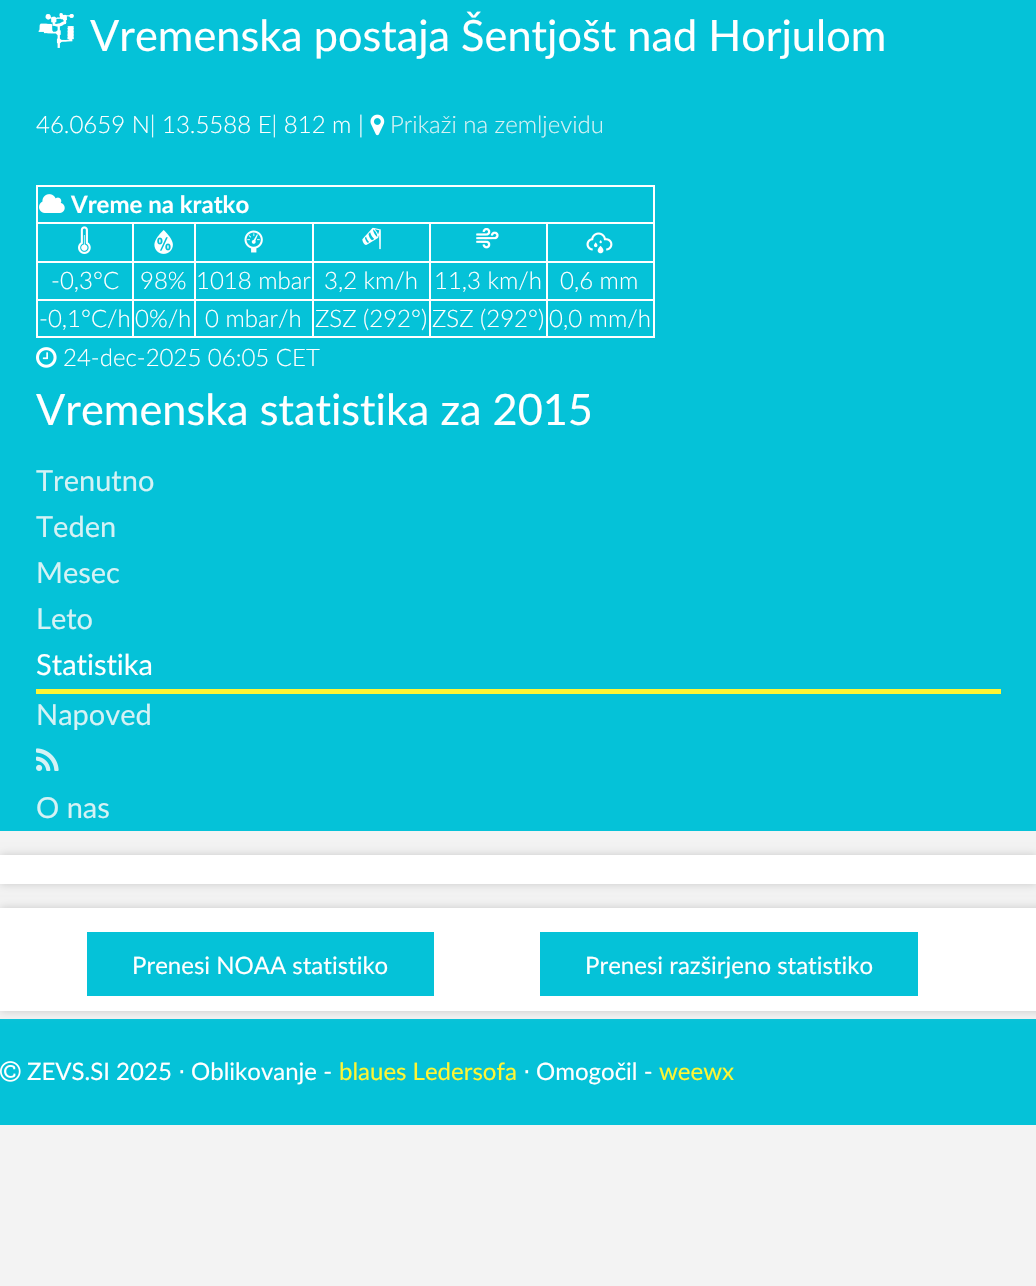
void draw(SkCanvas* canvas) {
    SkPaint paint;
    paint.setAntiAlias(true);
    canvas->clear(0xFFF3F3F3);
    paint.setColor(0xFF05C2D8);
    canvas->drawRect(SkRect::MakeXYWH(0, 0, 1036, 831), paint);
    canvas->drawImageRect(SkImages::DeferredFromEncodedData(SkData::MakeFromFileName("img1.png")), SkRect::MakeXYWH(38, 13, 36, 35), SkSamplingOptions());
    SkFont font1(fontMgr->matchFamilyStyle("Lato", SkFontStyle::Normal()), 43.25f);
    font1.setSubpixel(true);
    paint.setColor(0xFFFFFFFF);
    canvas->drawString("Vremenska postaja Šentjošt nad Horjulom", 90, 51, font1, paint);
    SkFont font2(fontMgr->matchFamilyStyle("Lato", SkFontStyle(300, SkFontStyle::kNormal_Width, SkFontStyle::kUpright_Slant)), 24);
    font2.setSubpixel(true);
    canvas->drawString("46.0659 N| 13.5588 E| 812 m |", 36, 133, font2, paint);
    canvas->drawImageRect(SkImages::DeferredFromEncodedData(SkData::MakeFromFileName("img2.png")), SkRect::MakeXYWH(370, 114, 15, 22), SkSamplingOptions());
    paint.setColor(0xFFD5F2F5);
    canvas->drawString("Prikaži na zemljevidu", 390, 133, font2, paint);
    paint.setColor(0xFFFFFFFF);
    canvas->drawRect(SkRect::MakeXYWH(36, 185, 618, 2), paint);
    canvas->drawRect(SkRect::MakeXYWH(653, 185, 2, 153), paint);
    canvas->drawRect(SkRect::MakeXYWH(36, 336, 618, 2), paint);
    canvas->drawRect(SkRect::MakeXYWH(36, 185, 2, 153), paint);
    canvas->drawImageRect(SkImages::DeferredFromEncodedData(SkData::MakeFromFileName("img3.png")), SkRect::MakeXYWH(39, 194, 26, 19), SkSamplingOptions());
    SkFont font3(fontMgr->matchFamilyStyle("Lato", SkFontStyle::Bold()), 24);
    font3.setSubpixel(true);
    canvas->drawString("Vreme na kratko", 71, 213, font3, paint);
    canvas->drawRect(SkRect::MakeXYWH(546, 222, 108, 2), paint);
    canvas->drawRect(SkRect::MakeXYWH(546, 261, 108, 2), paint);
    canvas->drawRect(SkRect::MakeXYWH(546, 299, 108, 2), paint);
    canvas->drawRect(SkRect::MakeXYWH(546, 299, 2, 39), paint);
    canvas->drawRect(SkRect::MakeXYWH(429, 299, 119, 2), paint);
    canvas->drawRect(SkRect::MakeXYWH(546, 261, 2, 39), paint);
    canvas->drawRect(SkRect::MakeXYWH(429, 261, 119, 2), paint);
    canvas->drawRect(SkRect::MakeXYWH(546, 222, 2, 41), paint);
    canvas->drawRect(SkRect::MakeXYWH(429, 222, 119, 2), paint);
    canvas->drawRect(SkRect::MakeXYWH(429, 299, 2, 39), paint);
    canvas->drawRect(SkRect::MakeXYWH(312, 299, 119, 2), paint);
    canvas->drawRect(SkRect::MakeXYWH(429, 261, 2, 39), paint);
    canvas->drawRect(SkRect::MakeXYWH(312, 261, 119, 2), paint);
    canvas->drawRect(SkRect::MakeXYWH(429, 222, 2, 41), paint);
    canvas->drawRect(SkRect::MakeXYWH(312, 222, 119, 2), paint);
    canvas->drawRect(SkRect::MakeXYWH(312, 299, 2, 39), paint);
    canvas->drawRect(SkRect::MakeXYWH(194, 299, 120, 2), paint);
    canvas->drawRect(SkRect::MakeXYWH(312, 261, 2, 39), paint);
    canvas->drawRect(SkRect::MakeXYWH(194, 261, 120, 2), paint);
    canvas->drawRect(SkRect::MakeXYWH(312, 222, 2, 41), paint);
    canvas->drawRect(SkRect::MakeXYWH(194, 222, 120, 2), paint);
    canvas->drawRect(SkRect::MakeXYWH(194, 299, 2, 39), paint);
    canvas->drawRect(SkRect::MakeXYWH(132, 299, 63, 2), paint);
    canvas->drawRect(SkRect::MakeXYWH(194, 261, 2, 39), paint);
    canvas->drawRect(SkRect::MakeXYWH(132, 261, 63, 2), paint);
    canvas->drawRect(SkRect::MakeXYWH(194, 222, 2, 41), paint);
    canvas->drawRect(SkRect::MakeXYWH(132, 222, 63, 2), paint);
    canvas->drawRect(SkRect::MakeXYWH(132, 299, 2, 39), paint);
    canvas->drawRect(SkRect::MakeXYWH(36, 299, 98, 2), paint);
    canvas->drawRect(SkRect::MakeXYWH(132, 261, 2, 39), paint);
    canvas->drawRect(SkRect::MakeXYWH(36, 261, 98, 2), paint);
    canvas->drawRect(SkRect::MakeXYWH(132, 222, 2, 41), paint);
    canvas->drawRect(SkRect::MakeXYWH(36, 222, 98, 2), paint);
    canvas->drawImageRect(SkImages::DeferredFromEncodedData(SkData::MakeFromFileName("img4.png")), SkRect::MakeXYWH(78, 226, 13, 28), SkSamplingOptions());
    canvas->drawImageRect(SkImages::DeferredFromEncodedData(SkData::MakeFromFileName("img5.png")), SkRect::MakeXYWH(154, 230, 19, 24), SkSamplingOptions());
    canvas->drawImageRect(SkImages::DeferredFromEncodedData(SkData::MakeFromFileName("img6.png")), SkRect::MakeXYWH(244, 230, 19, 23), SkSamplingOptions());
    canvas->drawImageRect(SkImages::DeferredFromEncodedData(SkData::MakeFromFileName("img7.png")), SkRect::MakeXYWH(362, 227, 19, 23), SkSamplingOptions());
    canvas->drawImageRect(SkImages::DeferredFromEncodedData(SkData::MakeFromFileName("img8.png")), SkRect::MakeXYWH(476, 228, 23, 21), SkSamplingOptions());
    canvas->drawImageRect(SkImages::DeferredFromEncodedData(SkData::MakeFromFileName("img9.png")), SkRect::MakeXYWH(586, 232, 27, 22), SkSamplingOptions());
    canvas->drawString("-0,3°C", 51, 289, font2, paint);
    canvas->drawString("98%", 140, 289, font2, paint);
    canvas->drawString("1018 mbar", 196, 289, font2, paint);
    canvas->drawString("3,2 km/h", 324, 289, font2, paint);
    canvas->drawString("11,3 km/h", 434, 289, font2, paint);
    canvas->drawString("0,6 mm", 560, 289, font2, paint);
    canvas->drawString("-0,1°C/h", 39, 327, font2, paint);
    canvas->drawString("0%/h", 135, 327, font2, paint);
    canvas->drawString("0 mbar/h", 205, 327, font2, paint);
    canvas->drawString("ZSZ (292°)", 315, 327, font2, paint);
    canvas->drawString("ZSZ (292°)", 432, 327, font2, paint);
    canvas->drawString("0,0 mm/h", 549, 327, font2, paint);
    canvas->drawImageRect(SkImages::DeferredFromEncodedData(SkData::MakeFromFileName("img10.png")), SkRect::MakeXYWH(36, 347, 21, 21), SkSamplingOptions());
    canvas->drawString("24-dec-2025 06:05 CET", 63, 366, font2, paint);
    canvas->drawString("Vremenska statistika za 2015", 36, 425, font1, paint);
    SkFont font4(fontMgr->matchFamilyStyle("Lato", SkFontStyle::Normal()), 29);
    font4.setSubpixel(true);
    paint.setColor(0xFFD5F2F5);
    canvas->drawString("Trenutno", 36, 491, font4, paint);
    canvas->drawString("Teden", 36, 537, font4, paint);
    canvas->drawString("Mesec", 36, 583, font4, paint);
    canvas->drawString("Leto", 36, 629, font4, paint);
    paint.setColor(0xFFFFF533);
    canvas->drawRect(SkRect::MakeXYWH(36, 689, 965, 5), paint);
    paint.setColor(0xFFFFFFFF);
    canvas->drawString("Statistika", 36, 675, font4, paint);
    paint.setColor(0xFFD5F2F5);
    canvas->drawString("Napoved", 36, 725, font4, paint);
    canvas->drawImageRect(SkImages::DeferredFromEncodedData(SkData::MakeFromFileName("img11.png")), SkRect::MakeXYWH(36, 748, 23, 23), SkSamplingOptions());
    canvas->drawString("O nas", 36, 818, font4, paint);
    paint.setColor(0xFFC9C9C9);
    paint.setMaskFilter(SkMaskFilter::MakeBlur(kNormal_SkBlurStyle, 4.5f));
    canvas->drawRect(SkRect::MakeXYWH(0, 855, 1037, 29), paint);
    paint.setMaskFilter(nullptr);
    paint.setColor(0xFFFFFFFF);
    canvas->drawRect(SkRect::MakeXYWH(0, 855, 1036, 29), paint);
    paint.setColor(0xFF05C2D8);
    canvas->drawRect(SkRect::MakeXYWH(0, 1019, 1036, 106), paint);
    paint.setColor(0xFFC9C9C9);
    paint.setMaskFilter(SkMaskFilter::MakeBlur(kNormal_SkBlurStyle, 4.5f));
    canvas->drawRect(SkRect::MakeXYWH(0, 908, 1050, 103), paint);
    paint.setMaskFilter(nullptr);
    paint.setColor(0xFFFFFFFF);
    canvas->drawRect(SkRect::MakeXYWH(0, 908, 1036, 103), paint);
    paint.setColor(0xFF05C2D8);
    canvas->drawRect(SkRect::MakeXYWH(87, 932, 347, 64), paint);
    SkFont font5(fontMgr->matchFamilyStyle("Lato", SkFontStyle::Normal()), 24);
    font5.setSubpixel(true);
    paint.setColor(0xFFFFFFFF);
    canvas->drawString("Prenesi NOAA statistiko", 132, 974, font5, paint);
    paint.setColor(0xFF05C2D8);
    canvas->drawRect(SkRect::MakeXYWH(540, 932, 378, 64), paint);
    paint.setColor(0xFFFFFFFF);
    canvas->drawString("Prenesi razširjeno statistiko", 585, 974, font5, paint);
    canvas->drawImageRect(SkImages::DeferredFromEncodedData(SkData::MakeFromFileName("img12.png")), SkRect::MakeXYWH(0, 1061, 21, 21), SkSamplingOptions());
    canvas->drawString("ZEVS.SI 2025", 27, 1080, font5, paint);
    SkFont font6(fontMgr->matchFamilyStyle("DejaVu Sans", SkFontStyle::Normal()), 24);
    font6.setSubpixel(true);
    canvas->drawString("⋅", 178, 1080, font6, paint);
    canvas->drawString("Oblikovanje -", 191, 1080, font5, paint);
    paint.setColor(0xFFFFF533);
    canvas->drawString("blaues Ledersofa", 339, 1080, font5, paint);
    paint.setColor(0xFFFFFFFF);
    canvas->drawString("⋅", 523, 1080, font6, paint);
    canvas->drawString("Omogočil -", 536, 1080, font5, paint);
    paint.setColor(0xFFFFF533);
    canvas->drawString("weewx", 659, 1080, font5, paint);
}
